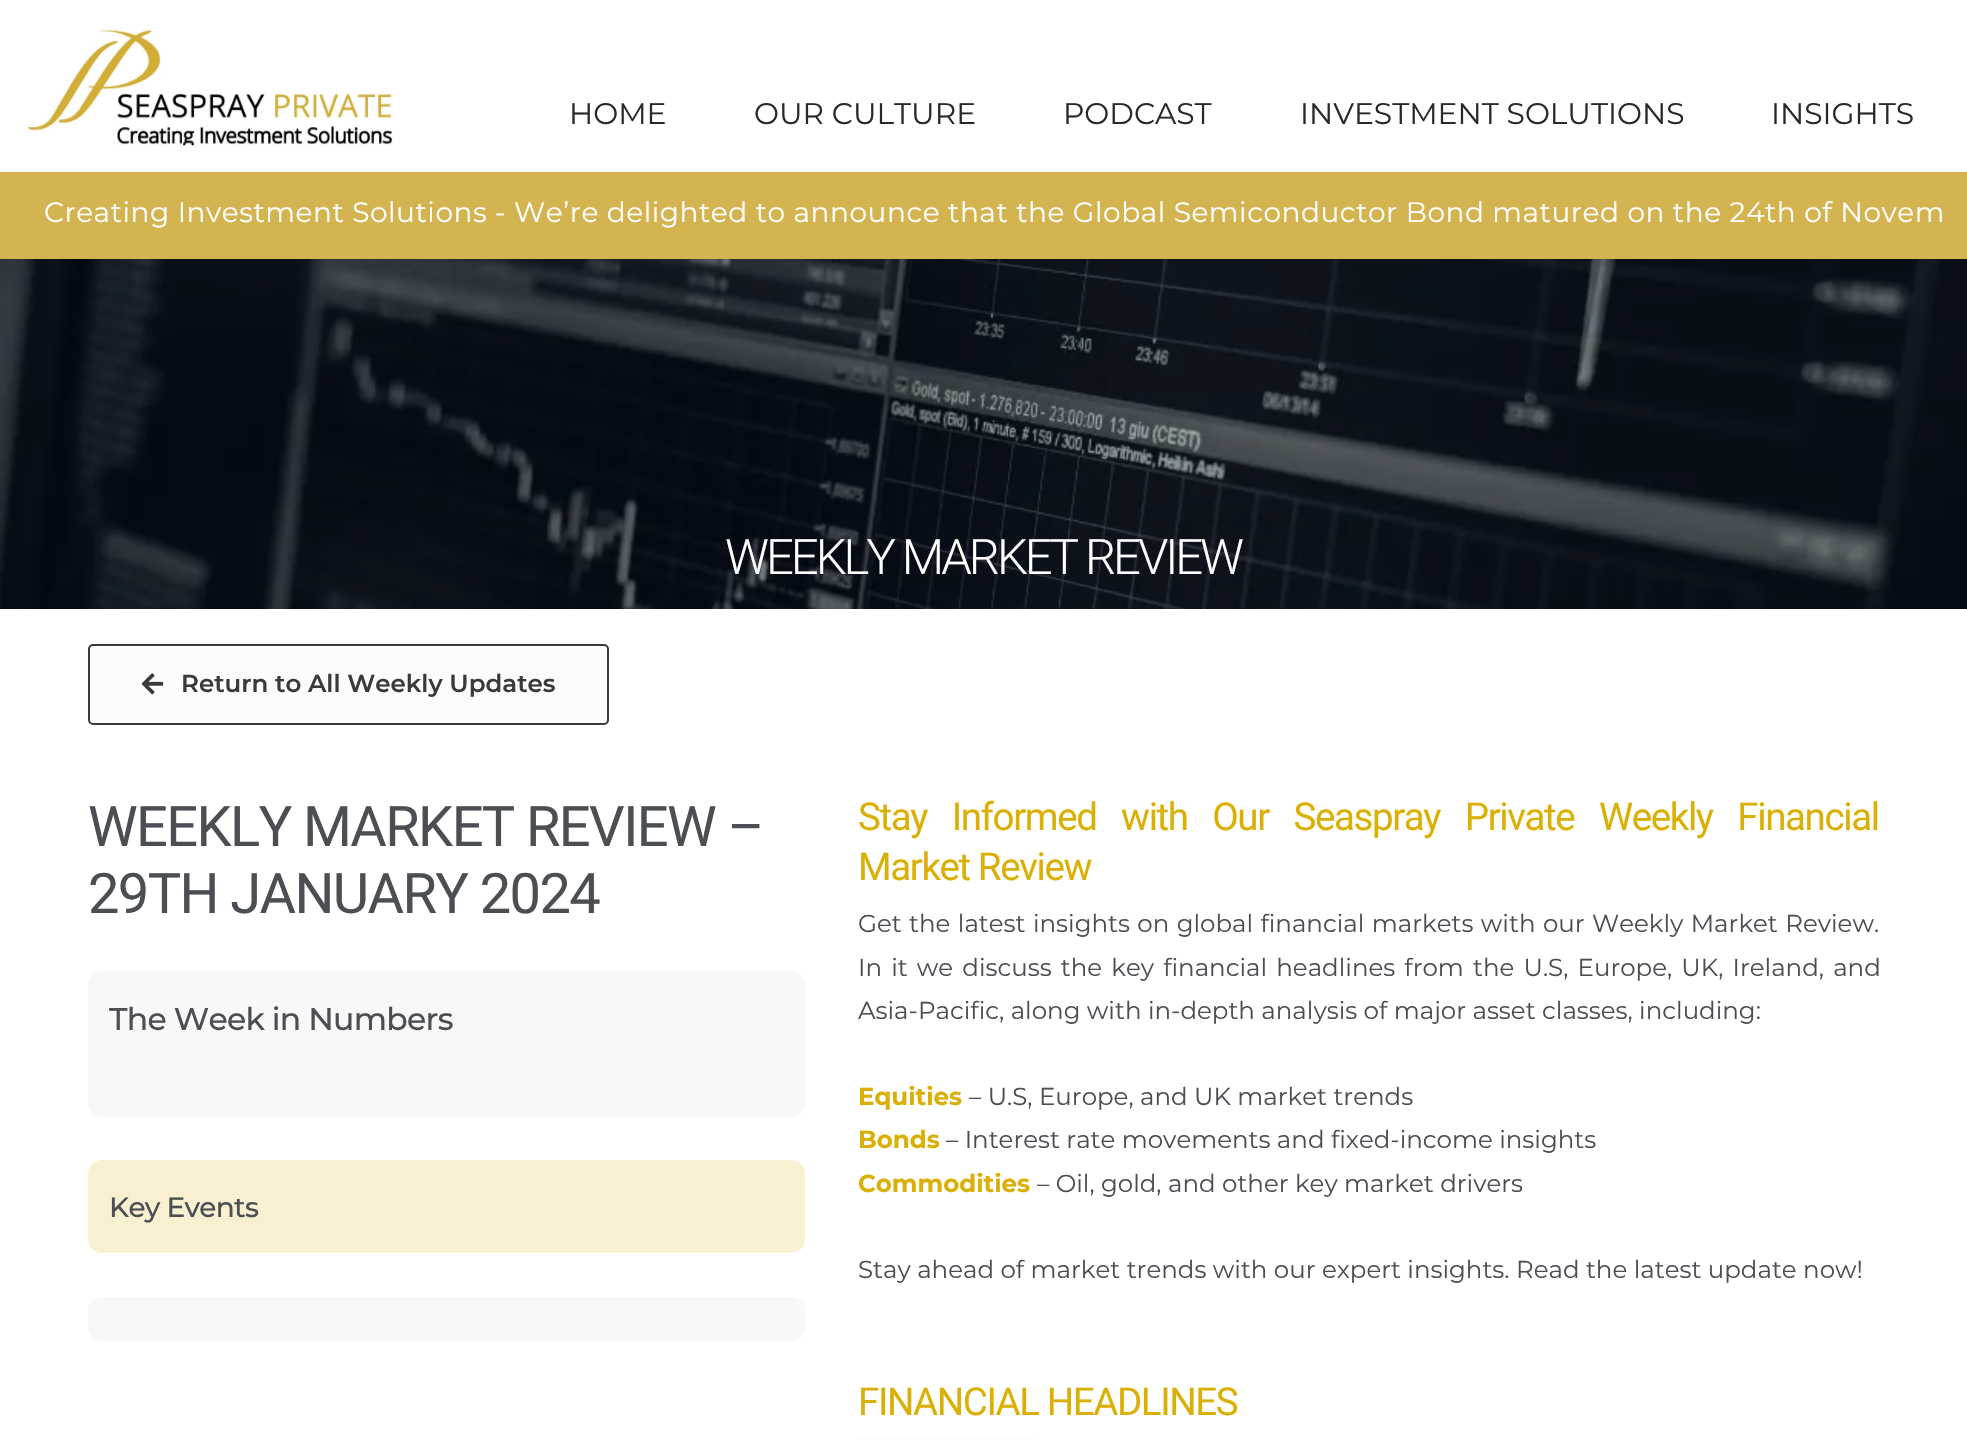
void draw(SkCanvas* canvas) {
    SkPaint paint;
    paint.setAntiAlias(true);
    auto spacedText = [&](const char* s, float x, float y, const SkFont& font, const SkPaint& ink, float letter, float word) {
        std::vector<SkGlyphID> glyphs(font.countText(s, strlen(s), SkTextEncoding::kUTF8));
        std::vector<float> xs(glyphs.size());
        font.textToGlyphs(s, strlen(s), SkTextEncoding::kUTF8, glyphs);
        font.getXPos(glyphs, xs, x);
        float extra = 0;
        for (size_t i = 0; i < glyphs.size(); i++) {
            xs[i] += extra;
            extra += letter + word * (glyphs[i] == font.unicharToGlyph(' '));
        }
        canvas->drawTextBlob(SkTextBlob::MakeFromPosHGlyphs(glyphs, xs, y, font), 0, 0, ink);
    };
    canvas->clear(0xFFFFFFFF);
    canvas->drawImageRect(SkImages::DeferredFromEncodedData(SkData::MakeFromFileName("img1.png")), SkRect::MakeXYWH(27, 29, 366, 117), SkSamplingOptions());
    SkFont font1(fontMgr->matchFamilyStyle("Montserrat", SkFontStyle::Normal()), 29.75f);
    font1.setSubpixel(true);
    paint.setColor(0xFF292929);
    canvas->drawString("HOME", 569, 124, font1, paint);
    canvas->drawString("OUR CULTURE", 754, 124, font1, paint);
    canvas->drawString("PODCAST", 1063, 124, font1, paint);
    canvas->drawString("INVESTMENT SOLUTIONS", 1300, 124, font1, paint);
    canvas->drawString("INSIGHTS", 1771, 124, font1, paint);
    paint.setColor(0xFFD4B450);
    canvas->drawRect(SkRect::MakeXYWH(0, 172, 1967, 87), paint);
    SkFont font2(fontMgr->matchFamilyStyle("Montserrat", SkFontStyle::Normal()), 28);
    font2.setSubpixel(true);
    paint.setColor(0xFFFFFFFF);
    spacedText("Creating Investment Solutions - We’re delighted to announce that the Global Semiconductor Bond matured on the 24th of Novem", 44, 222, font2, paint, 0.53f, 0);
    canvas->drawImageRect(SkImages::DeferredFromEncodedData(SkData::MakeFromFileName("img2.png")), SkRect::MakeXYWH(0, 259, 1967, 350), SkSamplingOptions());
    SkFont font3(fontMgr->matchFamilyStyle("Roboto", SkFontStyle(300, SkFontStyle::kNormal_Width, SkFontStyle::kUpright_Slant)), 49);
    font3.setSubpixel(true);
    spacedText("WEEKLY MARKET REVIEW", 725, 574, font3, paint, -3, 0);
    paint.setColor(0xFFFCFCFC);
    canvas->drawRoundRect(SkRect::MakeXYWH(89, 645, 519, 79), 4, 4, paint);
    paint.setStyle(SkPaint::kStroke_Style);
    paint.setStrokeWidth(2);
    paint.setColor(0xFF3A3A3A);
    canvas->drawRoundRect(SkRect::MakeXYWH(89, 645, 519, 79), 4, 4, paint);
    canvas->drawImageRect(SkImages::DeferredFromEncodedData(SkData::MakeFromFileName("img3.png")), SkRect::MakeXYWH(141, 673, 23, 22), SkSamplingOptions());
    SkFont font4(fontMgr->matchFamilyStyle("Montserrat", SkFontStyle(600, SkFontStyle::kNormal_Width, SkFontStyle::kUpright_Slant)), 24.5f);
    font4.setSubpixel(true);
    paint.setStyle(SkPaint::kFill_Style);
    canvas->drawString("Return to All Weekly Updates", 181, 692, font4, paint);
    SkFont font5(fontMgr->matchFamilyStyle("Roboto", SkFontStyle::Normal()), 56);
    font5.setSubpixel(true);
    paint.setColor(0xFF4B4F54);
    spacedText("WEEKLY MARKET REVIEW –", 88, 846, font5, paint, -1.6f, 0);
    spacedText("29TH JANUARY 2024", 88, 913, font5, paint, -1.6f, 0);
    paint.setColor(0xFFF8F8F8);
    canvas->drawRoundRect(SkRect::MakeXYWH(88, 971, 717, 146), 14, 14, paint);
    SkFont font6(fontMgr->matchFamilyStyle("Montserrat", SkFontStyle(500, SkFontStyle::kNormal_Width, SkFontStyle::kUpright_Slant)), 31.5f);
    font6.setSubpixel(true);
    paint.setColor(0xFF4B4F54);
    spacedText("The Week in Numbers", 109, 1030, font6, paint, -0.75f, 0);
    paint.setColor(0xFFF8F0D0);
    canvas->drawRoundRect(SkRect::MakeXYWH(88, 1160, 717, 93), 14, 14, paint);
    SkFont font7(fontMgr->matchFamilyStyle("Montserrat", SkFontStyle(500, SkFontStyle::kNormal_Width, SkFontStyle::kUpright_Slant)), 28);
    font7.setSubpixel(true);
    paint.setColor(0xFF4B4F54);
    spacedText("Key Events", 109, 1217, font7, paint, -0.75f, 0);
    paint.setColor(0xFFF8F8F8);
    canvas->drawRoundRect(SkRect::MakeXYWH(88, 1297, 717, 44), 14, 14, paint);
    SkFont font8(fontMgr->matchFamilyStyle("Roboto", SkFontStyle::Normal()), 38.5f);
    font8.setSubpixel(true);
    paint.setColor(0xFFDBB006);
    spacedText("Stay Informed with Our Seaspray Private Weekly Financial", 858, 830, font8, paint, -1.4f, 16.5f);
    spacedText("Market Review", 858, 880, font8, paint, -1.4f, 0);
    SkFont font9(fontMgr->matchFamilyStyle("Montserrat", SkFontStyle::Normal()), 24.5f);
    font9.setSubpixel(true);
    paint.setColor(0xFF4B4F54);
    spacedText("Get the latest insights on global financial markets with our Weekly Market Review.", 858, 932, font9, paint, 0, 1);
    spacedText("In it we discuss the key financial headlines from the U.S, Europe, UK, Ireland, and", 858, 976, font9, paint, 0, 2.75f);
    canvas->drawString("Asia-Pacific, along with in-depth analysis of major asset classes, including:", 858, 1019, font9, paint);
    SkFont font10(fontMgr->matchFamilyStyle("Montserrat", SkFontStyle::Bold()), 24.5f);
    font10.setSubpixel(true);
    paint.setColor(0xFFDBB006);
    canvas->drawString("Equities", 858, 1105, font10, paint);
    paint.setColor(0xFF4B4F54);
    canvas->drawString("– U.S, Europe, and UK market trends", 969, 1105, font9, paint);
    paint.setColor(0xFFDBB006);
    canvas->drawString("Bonds", 858, 1148, font10, paint);
    paint.setColor(0xFF4B4F54);
    canvas->drawString("– Interest rate movements and fixed-income insights", 946, 1148, font9, paint);
    paint.setColor(0xFFDBB006);
    canvas->drawString("Commodities", 858, 1192, font10, paint);
    paint.setColor(0xFF4B4F54);
    canvas->drawString("– Oil, gold, and other key market drivers", 1037, 1192, font9, paint);
    canvas->drawString("Stay ahead of market trends with our expert insights. Read the latest update now!", 858, 1278, font9, paint);
    paint.setColor(0xFFDBB006);
    spacedText("FINANCIAL HEADLINES", 858, 1415, font8, paint, -1.4f, 0);
    paint.setColor(0xFFFCFCFC);
    canvas->drawRect(SkRect::MakeXYWH(858, 1437, 175, 2), paint);
}
